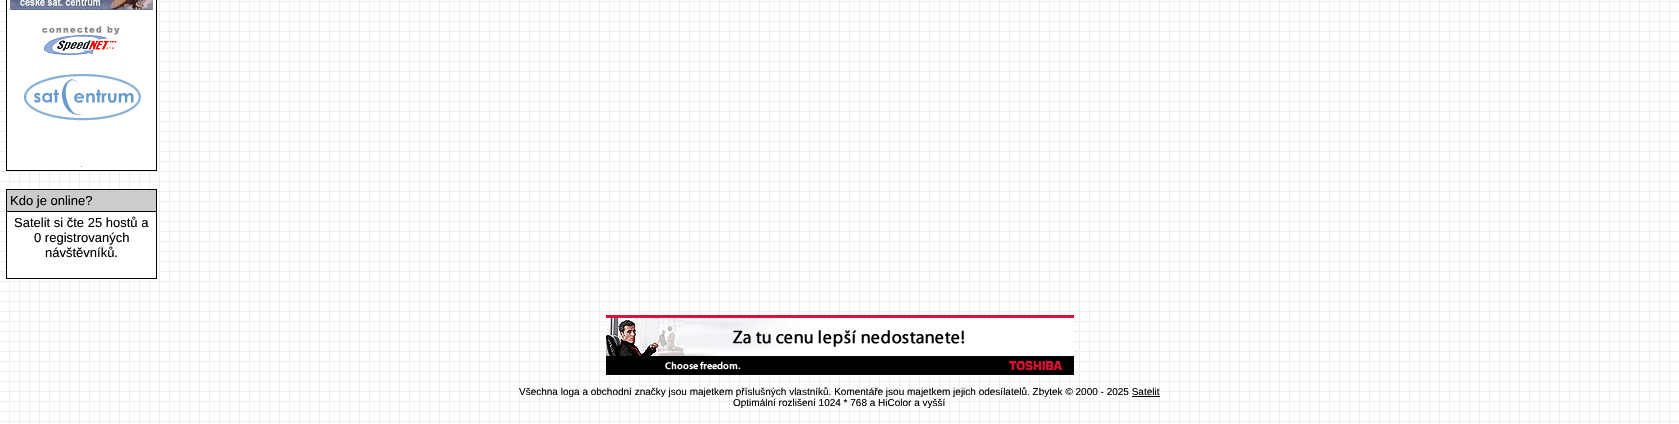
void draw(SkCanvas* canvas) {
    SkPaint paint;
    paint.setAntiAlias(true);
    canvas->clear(0xFFFFFFFF);
    canvas->drawImageRect(SkImages::DeferredFromEncodedData(SkData::MakeFromFileName("img1.png")), SkRect::MakeXYWH(0, 0, 1679, 424), SkSamplingOptions());
    paint.setColor(0xFF000000);
    canvas->drawRect(SkRect::MakeXYWH(6, 0, 151, 171), paint);
    paint.setColor(0xFFFFFFFF);
    canvas->drawRect(SkRect::MakeXYWH(7, 0, 149, 170), paint);
    canvas->drawImageRect(SkImages::DeferredFromEncodedData(SkData::MakeFromFileName("img2.png")), SkRect::MakeXYWH(10, 0, 143, 10), SkSamplingOptions());
    canvas->drawImageRect(SkImages::DeferredFromEncodedData(SkData::MakeFromFileName("img3.png")), SkRect::MakeXYWH(42, 26, 78, 29), SkSamplingOptions());
    canvas->drawImageRect(SkImages::DeferredFromEncodedData(SkData::MakeFromFileName("img4.png")), SkRect::MakeXYWH(24, 74, 117, 47), SkSamplingOptions());
    paint.setColor(0xFF96A3AA);
    canvas->drawRect(SkRect::MakeXYWH(81, 166, 1, 1), paint);
    paint.setColor(0xFF000000);
    canvas->drawRect(SkRect::MakeXYWH(6, 189, 151, 90), paint);
    paint.setColor(0xFFCCCCCC);
    canvas->drawRect(SkRect::MakeXYWH(7, 190, 149, 21), paint);
    SkFont font1(fontMgr->matchFamilyStyle("Liberation Sans", SkFontStyle::Normal()), 13);
    font1.setSubpixel(true);
    paint.setColor(0xFF000000);
    canvas->drawString("Kdo je online?", 10, 205, font1, paint);
    paint.setColor(0xFFFFFFFF);
    canvas->drawRect(SkRect::MakeXYWH(7, 212, 149, 66), paint);
    paint.setColor(0xFF000000);
    canvas->drawString("Satelit si čte 25 hostů a", 14, 227, font1, paint);
    canvas->drawString("0 registrovaných", 34, 242, font1, paint);
    canvas->drawString("návštěvníků.", 45, 257, font1, paint);
    canvas->drawImageRect(SkImages::DeferredFromEncodedData(SkData::MakeFromFileName("img5.png")), SkRect::MakeXYWH(606, 315, 468, 60), SkSamplingOptions());
    SkFont font2(fontMgr->matchFamilyStyle("Liberation Sans", SkFontStyle::Normal()), 10);
    font2.setSubpixel(true);
    canvas->drawString("Všechna loga a obchodní značky jsou majetkem příslušných vlastníků. Komentáře jsou majetkem jejich odesílatelů. Zbytek © 2000 - 2025 Satelit", 519, 395, font2, paint);
    canvas->drawRect(SkRect::MakeXYWH(1132, 396, 28, 1), paint);
    canvas->drawString("Optimální rozlišení 1024 * 768 a HiColor a vyšší", 733, 406, font2, paint);
}
